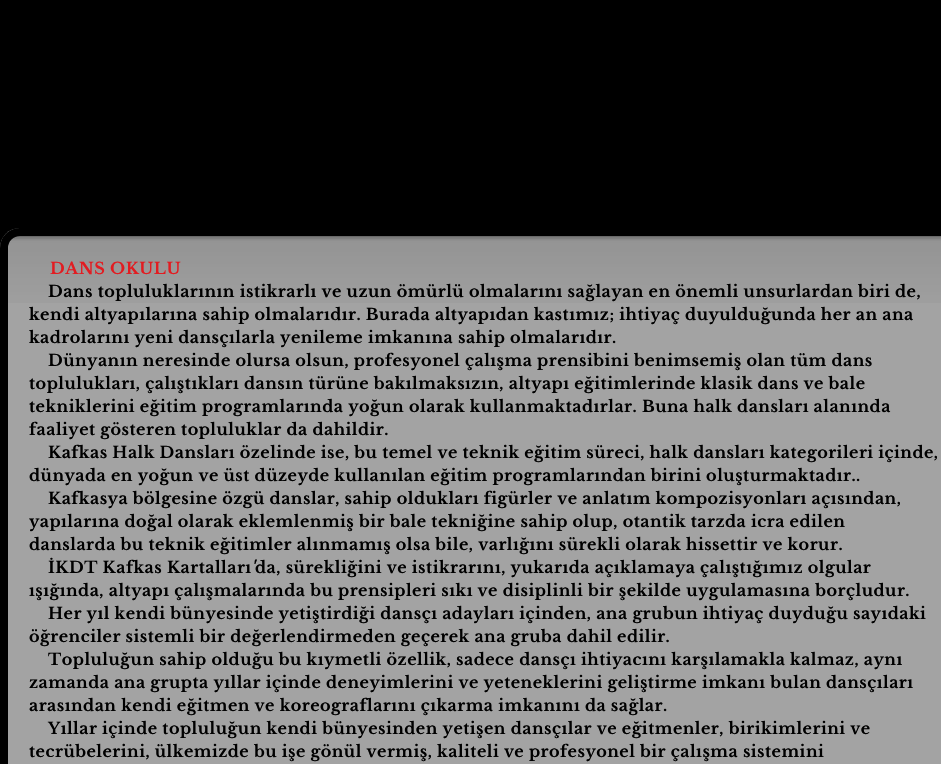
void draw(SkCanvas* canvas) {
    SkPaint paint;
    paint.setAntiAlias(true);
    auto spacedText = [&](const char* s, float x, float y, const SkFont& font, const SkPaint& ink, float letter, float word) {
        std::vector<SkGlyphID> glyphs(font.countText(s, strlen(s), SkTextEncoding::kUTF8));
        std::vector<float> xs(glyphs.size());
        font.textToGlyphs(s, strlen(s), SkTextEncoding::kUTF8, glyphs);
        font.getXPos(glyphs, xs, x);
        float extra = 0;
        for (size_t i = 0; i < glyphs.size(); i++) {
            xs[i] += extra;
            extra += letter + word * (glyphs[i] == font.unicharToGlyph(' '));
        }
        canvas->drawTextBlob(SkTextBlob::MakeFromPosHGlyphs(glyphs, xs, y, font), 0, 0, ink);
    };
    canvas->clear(0xFF000000);
    paint.setColor(0xFFA3A3A3);
    canvas->drawRoundRect(SkRect::MakeXYWH(0, 228, 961, 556), 20, 20, paint);
    canvas->drawImageRect(SkImages::DeferredFromEncodedData(SkData::MakeFromFileName("img1.png")), SkRect::MakeXYWH(0, 238, 941, 65), SkSamplingOptions());
    paint.setStyle(SkPaint::kStroke_Style);
    paint.setStrokeWidth(8);
    paint.setColor(0xFF000000);
    canvas->drawRoundRect(SkRect::MakeXYWH(4, 232, 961, 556), 16, 16, paint);
    canvas->save();
    canvas->clipRect(SkRect::MakeXYWH(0, 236, 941, 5));
    paint.setStyle(SkPaint::kFill_Style);
    paint.setColor(0x99000000);
    paint.setMaskFilter(SkMaskFilter::MakeBlur(kNormal_SkBlurStyle, 2));
    canvas->drawRect(SkRect::MakeXYWH(-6, -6, 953, 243), paint);
    paint.setMaskFilter(nullptr);
    canvas->restore();
    SkFont font1(fontMgr->matchFamilyStyle("Libre Baskerville", SkFontStyle::Bold()), 16);
    font1.setSubpixel(true);
    paint.setColor(0xFFE21C21);
    spacedText("DANS OKULU", 50, 274, font1, paint, 0.5f, 0);
    paint.setColor(0xFF000000);
    spacedText("Dans topluluklarının istikrarlı ve uzun ömürlü olmalarını sağlayan en önemli unsurlardan biri de,", 48, 297, font1, paint, 0.48f, 0);
    spacedText("kendi altyapılarına sahip olmalarıdır. Burada altyapıdan kastımız; ihtiyaç duyulduğunda her an ana", 29, 320, font1, paint, 0.48f, 0);
    spacedText("kadrolarını yeni dansçılarla yenileme imkanına sahip olmalarıdır.", 29, 343, font1, paint, 0.48f, 0);
    spacedText("Dünyanın neresinde olursa olsun, profesyonel çalışma prensibini benimsemiş olan tüm dans", 48, 366, font1, paint, 0.48f, 0);
    spacedText("toplulukları, çalıştıkları dansın türüne bakılmaksızın, altyapı eğitimlerinde klasik dans ve bale", 29, 389, font1, paint, 0.48f, 0);
    spacedText("tekniklerini eğitim programlarında yoğun olarak kullanmaktadırlar. Buna halk dansları alanında", 29, 412, font1, paint, 0.48f, 0);
    spacedText("faaliyet gösteren topluluklar da dahildir.", 29, 435, font1, paint, 0.48f, 0);
    spacedText("Kafkas Halk Dansları özelinde ise, bu temel ve teknik eğitim süreci, halk dansları kategorileri içinde,", 48, 458, font1, paint, 0.48f, 0);
    spacedText("dünyada en yoğun ve üst düzeyde kullanılan eğitim programlarından birini oluşturmaktadır..", 29, 481, font1, paint, 0.48f, 0);
    spacedText("Kafkasya bölgesine özgü danslar, sahip oldukları figürler ve anlatım kompozisyonları açısından,", 48, 504, font1, paint, 0.48f, 0);
    spacedText("yapılarına doğal olarak eklemlenmiş bir bale tekniğine sahip olup, otantik tarzda icra edilen", 29, 527, font1, paint, 0.48f, 0);
    spacedText("danslarda bu teknik eğitimler alınmamış olsa bile, varlığını sürekli olarak hissettir ve korur.", 29, 550, font1, paint, 0.48f, 0);
    spacedText("İKDT Kafkas Kartalları", 48, 573, font1, paint, 0.48f, 0);
    SkFont font2(fontMgr->matchFamilyStyle("Libre Baskerville", SkFontStyle::BoldItalic()), 16);
    font2.setSubpixel(true);
    spacedText("'", 252, 573, font2, paint, 0.48f, 0);
    spacedText("da, sürekliğini ve istikrarını, yukarıda açıklamaya çalıştığımız olgular", 255, 573, font1, paint, 0.48f, 0);
    spacedText("ışığında, altyapı çalışmalarında bu prensipleri sıkı ve disiplinli bir şekilde uygulamasına borçludur.", 29, 596, font1, paint, 0.48f, 0);
    spacedText("Her yıl kendi bünyesinde yetiştirdiği dansçı adayları içinden, ana grubun ihtiyaç duyduğu sayıdaki", 48, 619, font1, paint, 0.48f, 0);
    spacedText("öğrenciler sistemli bir değerlendirmeden geçerek ana gruba dahil edilir.", 29, 642, font1, paint, 0.48f, 0);
    spacedText("Topluluğun sahip olduğu bu kıymetli özellik, sadece dansçı ihtiyacını karşılamakla kalmaz, aynı", 48, 665, font1, paint, 0.48f, 0);
    spacedText("zamanda ana grupta yıllar içinde deneyimlerini ve yeteneklerini geliştirme imkanı bulan dansçıları", 29, 688, font1, paint, 0.48f, 0);
    spacedText("arasından kendi eğitmen ve koreograflarını çıkarma imkanını da sağlar.", 29, 711, font1, paint, 0.48f, 0);
    spacedText("Yıllar içinde topluluğun kendi bünyesinden yetişen dansçılar ve eğitmenler, birikimlerini ve", 48, 734, font1, paint, 0.48f, 0);
    spacedText("tecrübelerini, ülkemizde bu işe gönül vermiş, kaliteli ve profesyonel bir çalışma sistemini", 29, 757, font1, paint, 0.48f, 0);
}
